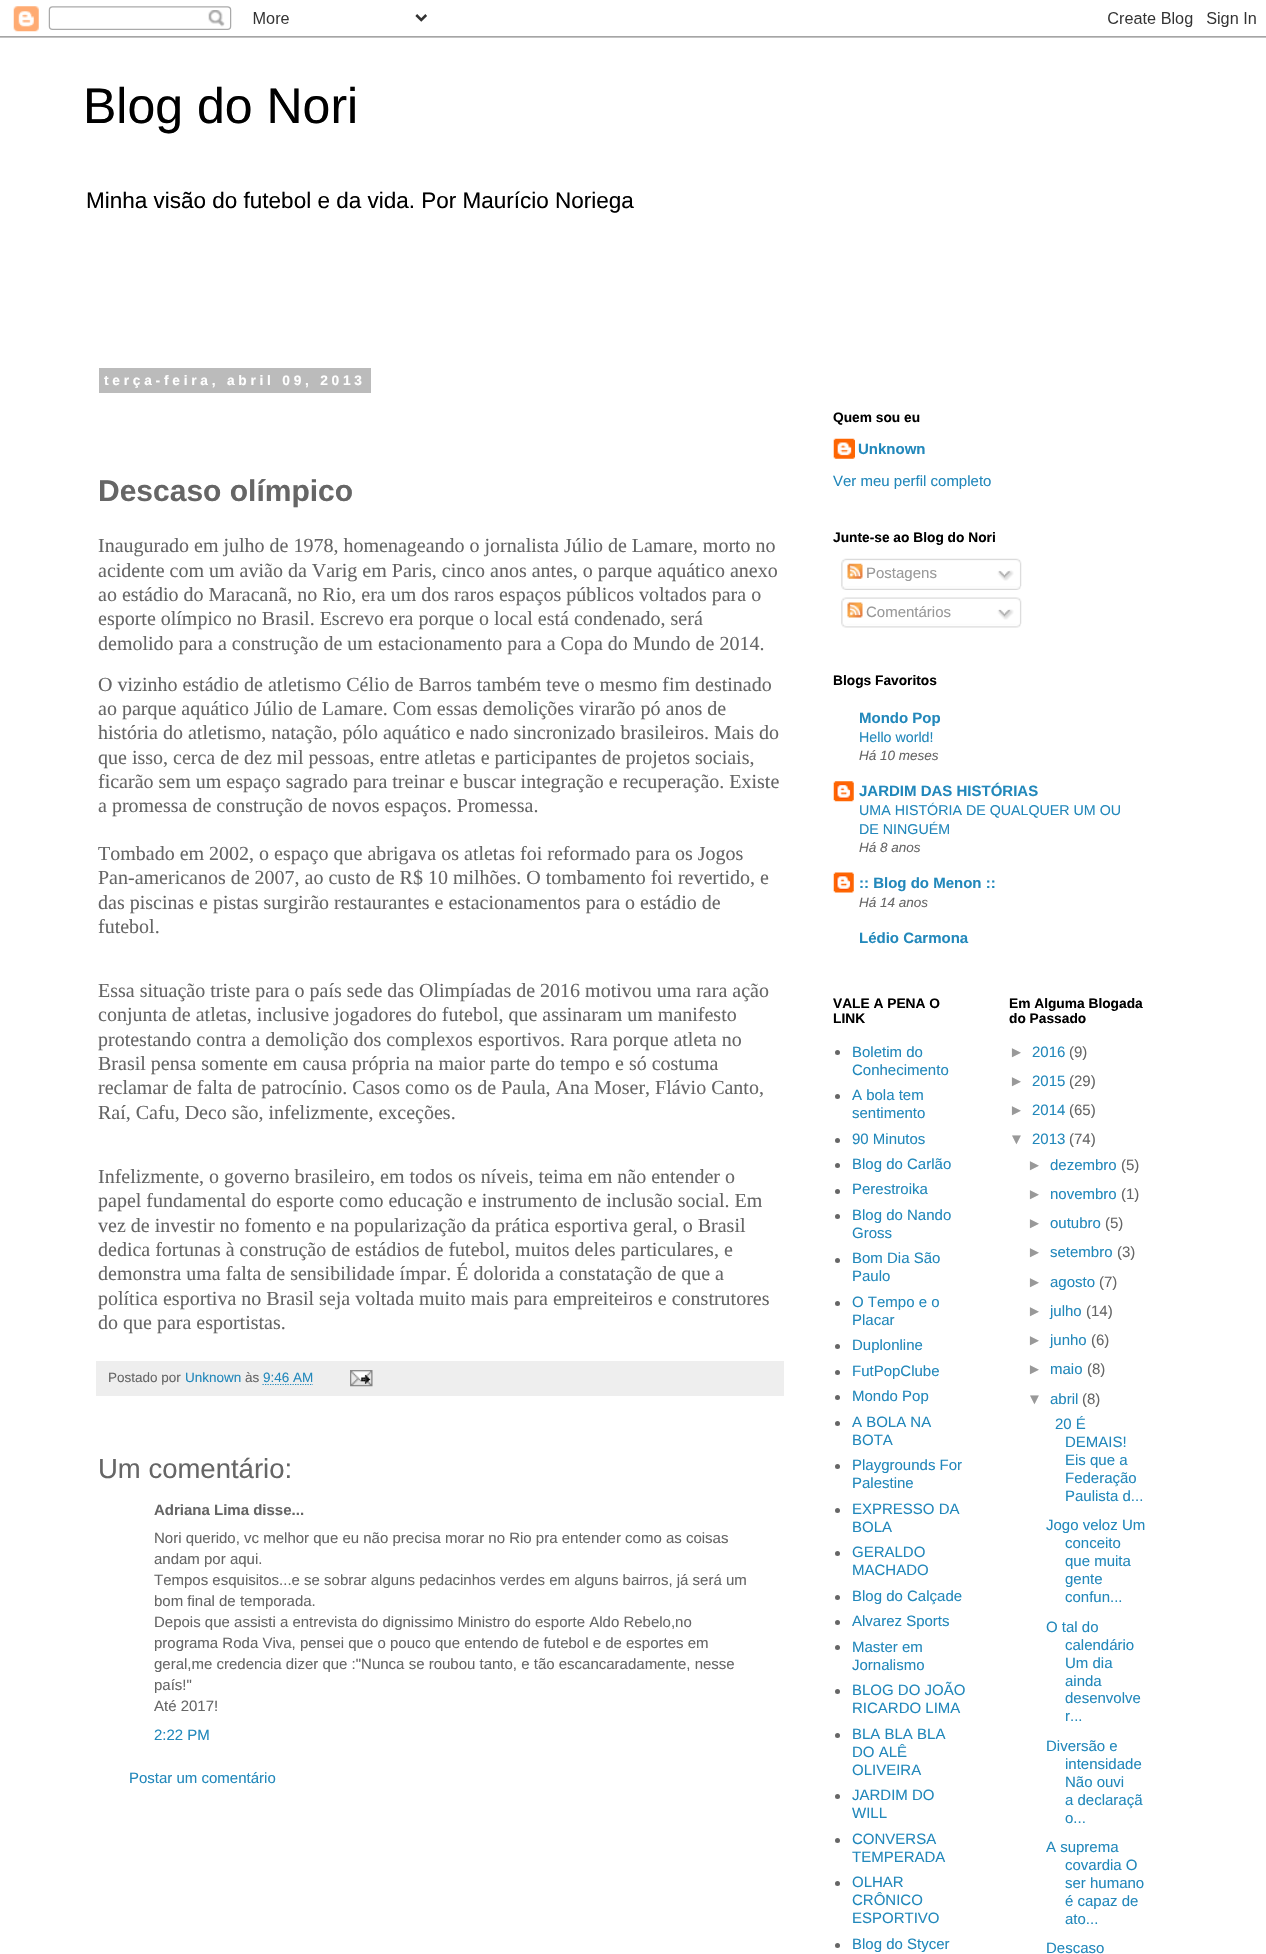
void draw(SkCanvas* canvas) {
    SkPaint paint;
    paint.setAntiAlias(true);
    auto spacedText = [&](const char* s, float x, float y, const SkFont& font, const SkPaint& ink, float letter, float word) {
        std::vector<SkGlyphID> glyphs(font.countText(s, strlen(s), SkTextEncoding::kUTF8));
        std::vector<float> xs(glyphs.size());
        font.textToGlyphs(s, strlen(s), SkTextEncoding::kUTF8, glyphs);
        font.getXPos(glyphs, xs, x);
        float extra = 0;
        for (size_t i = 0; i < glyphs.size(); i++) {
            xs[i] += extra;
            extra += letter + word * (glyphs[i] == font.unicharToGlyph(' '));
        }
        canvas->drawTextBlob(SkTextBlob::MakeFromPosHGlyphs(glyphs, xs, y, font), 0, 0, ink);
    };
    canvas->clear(0xFFFFFFFF);
    canvas->drawImageRect(SkImages::DeferredFromEncodedData(SkData::MakeFromFileName("img1.png")), SkRect::MakeXYWH(0, 6, 1266, 32), SkSamplingOptions());
    SkFont font1(fontMgr->matchFamilyStyle("Liberation Sans", SkFontStyle::Normal()), 50);
    font1.setSubpixel(true);
    paint.setColor(0xFF000000);
    canvas->drawString("Blog do Nori", 83, 123, font1, paint);
    SkFont font2(fontMgr->matchFamilyStyle("Liberation Sans", SkFontStyle::Normal()), 22.5f);
    font2.setSubpixel(true);
    canvas->drawString("Minha visão do futebol e da vida. Por Maurício Noriega", 86, 208, font2, paint);
    paint.setColor(0xFFBBBBBB);
    canvas->drawRect(SkRect::MakeXYWH(99, 368, 272, 25), paint);
    SkFont font3(fontMgr->matchFamilyStyle("Liberation Sans", SkFontStyle::Bold()), 13.75f);
    font3.setSubpixel(true);
    paint.setColor(0xFFFFFFFF);
    spacedText("terça-feira, abril 09, 2013", 104, 385, font3, paint, 3.75f, 0);
    SkFont font4(fontMgr->matchFamilyStyle("Liberation Sans", SkFontStyle::Bold()), 30);
    font4.setSubpixel(true);
    paint.setColor(0xFF666666);
    canvas->drawString("Descaso olímpico", 98, 501, font4, paint);
    SkFont font5(fontMgr->matchFamilyStyle("Liberation Serif", SkFontStyle::Normal()), 20);
    font5.setSubpixel(true);
    canvas->drawString("Inaugurado em julho de 1978, homenageando o jornalista Júlio de Lamare, morto no", 98, 552, font5, paint);
    canvas->drawString("acidente com um avião da Varig em Paris, cinco anos antes, o parque aquático anexo", 98, 577, font5, paint);
    canvas->drawString("ao estádio do Maracanã, no Rio, era um dos raros espaços públicos voltados para o", 98, 601, font5, paint);
    canvas->drawString("esporte olímpico no Brasil. Escrevo era porque o local está condenado, será", 98, 625, font5, paint);
    canvas->drawString("demolido para a construção de um estacionamento para a Copa do Mundo de 2014.", 98, 650, font5, paint);
    canvas->drawString("O vizinho estádio de atletismo Célio de Barros também teve o mesmo fim destinado", 98, 691, font5, paint);
    canvas->drawString("ao parque aquático Júlio de Lamare. Com essas demolições virarão pó anos de", 98, 715, font5, paint);
    canvas->drawString("história do atletismo, natação, pólo aquático e nado sincronizado brasileiros. Mais do", 98, 739, font5, paint);
    canvas->drawString("que isso, cerca de dez mil pessoas, entre atletas e participantes de projetos sociais,", 98, 764, font5, paint);
    canvas->drawString("ficarão sem um espaço sagrado para treinar e buscar integração e recuperação. Existe", 98, 788, font5, paint);
    canvas->drawString("a promessa de construção de novos espaços. Promessa.", 98, 812, font5, paint);
    canvas->drawString("Tombado em 2002, o espaço que abrigava os atletas foi reformado para os Jogos", 98, 860, font5, paint);
    canvas->drawString("Pan-americanos de 2007, ao custo de R$ 10 milhões. O tombamento foi revertido, e", 98, 884, font5, paint);
    canvas->drawString("das piscinas e pistas surgirão restaurantes e estacionamentos para o estádio de", 98, 909, font5, paint);
    canvas->drawString("futebol.", 98, 933, font5, paint);
    canvas->drawString("Essa situação triste para o país sede das Olimpíadas de 2016 motivou uma rara ação", 98, 997, font5, paint);
    canvas->drawString("conjunta de atletas, inclusive jogadores do futebol, que assinaram um manifesto", 98, 1021, font5, paint);
    canvas->drawString("protestando contra a demolição dos complexos esportivos. Rara porque atleta no", 98, 1046, font5, paint);
    canvas->drawString("Brasil pensa somente em causa própria na maior parte do tempo e só costuma", 98, 1070, font5, paint);
    canvas->drawString("reclamar de falta de patrocínio. Casos como os de Paula, Ana Moser, Flávio Canto,", 98, 1094, font5, paint);
    canvas->drawString("Raí, Cafu, Deco são, infelizmente, exceções.", 98, 1119, font5, paint);
    canvas->drawString("Infelizmente, o governo brasileiro, em todos os níveis, teima em não entender o", 98, 1183, font5, paint);
    canvas->drawString("papel fundamental do esporte como educação e instrumento de inclusão social. Em", 98, 1207, font5, paint);
    canvas->drawString("vez de investir no fomento e na popularização da prática esportiva geral, o Brasil", 98, 1232, font5, paint);
    canvas->drawString("dedica fortunas à construção de estádios de futebol, muitos deles particulares, e", 98, 1256, font5, paint);
    canvas->drawString("demonstra uma falta de sensibilidade ímpar. É dolorida a constatação de que a", 98, 1280, font5, paint);
    canvas->drawString("política esportiva no Brasil seja voltada muito mais para empreiteiros e construtores", 98, 1305, font5, paint);
    canvas->drawString("do que para esportistas.", 98, 1329, font5, paint);
    paint.setColor(0xFFEEEEEE);
    canvas->drawRect(SkRect::MakeXYWH(96, 1361, 688, 35), paint);
    SkFont font6(fontMgr->matchFamilyStyle("Liberation Sans", SkFontStyle::Normal()), 13.5f);
    font6.setSubpixel(true);
    paint.setColor(0xFF666666);
    canvas->drawString("Postado por", 108, 1382, font6, paint);
    paint.setColor(0xFF2288BB);
    canvas->drawString("Unknown", 185, 1382, font6, paint);
    paint.setColor(0xFF666666);
    canvas->drawString("às", 245, 1382, font6, paint);
    paint.setColor(0xFF2288BB);
    canvas->drawString("9:46 AM", 263, 1382, font6, paint);
    paint.setStyle(SkPaint::kStroke_Style);
    paint.setStrokeWidth(1.2f);
    paint.setPathEffect(SkDashPathEffect::Make({{1.25f, 1.25f}}, 0));
    canvas->drawPath(SkPathBuilder().moveTo(262.5f, 1384.5f).lineTo(313, 1384.5f).detach(), paint);
    paint.setPathEffect(nullptr);
    canvas->drawImageRect(SkImages::DeferredFromEncodedData(SkData::MakeFromFileName("img2.png")), SkRect::MakeXYWH(350, 1370, 23, 17), SkSamplingOptions());
    SkFont font7(fontMgr->matchFamilyStyle("Liberation Sans", SkFontStyle::Normal()), 27.5f);
    font7.setSubpixel(true);
    paint.setStyle(SkPaint::kFill_Style);
    paint.setColor(0xFF666666);
    canvas->drawString("Um comentário:", 98, 1478, font7, paint);
    SkFont font8(fontMgr->matchFamilyStyle("Liberation Sans", SkFontStyle::Bold()), 15);
    font8.setSubpixel(true);
    canvas->drawString("Adriana Lima disse...", 154, 1515, font8, paint);
    SkFont font9(fontMgr->matchFamilyStyle("Liberation Sans", SkFontStyle::Normal()), 15);
    font9.setSubpixel(true);
    canvas->drawString("Nori querido, vc melhor que eu não precisa morar no Rio pra entender como as coisas", 154, 1543, font9, paint);
    canvas->drawString("andam por aqui.", 154, 1564, font9, paint);
    canvas->drawString("Tempos esquisitos...e se sobrar alguns pedacinhos verdes em alguns bairros, já será um", 154, 1585, font9, paint);
    canvas->drawString("bom final de temporada.", 154, 1606, font9, paint);
    canvas->drawString("Depois que assisti a entrevista do dignissimo Ministro do esporte Aldo Rebelo,no", 154, 1627, font9, paint);
    canvas->drawString("programa Roda Viva, pensei que o pouco que entendo de futebol e de esportes em", 154, 1648, font9, paint);
    canvas->drawString("geral,me credencia dizer que :\"Nunca se roubou tanto, e tão escancaradamente, nesse", 154, 1669, font9, paint);
    canvas->drawString("país!\"", 154, 1690, font9, paint);
    canvas->drawString("Até 2017!", 154, 1711, font9, paint);
    paint.setColor(0xFF2288BB);
    canvas->drawString("2:22 PM", 154, 1740, font9, paint);
    canvas->drawString("Postar um comentário", 129, 1783, font9, paint);
    paint.setColor(0xFF000000);
    canvas->drawString("Quem sou eu", 833, 422, font3, paint);
    canvas->drawImageRect(SkImages::DeferredFromEncodedData(SkData::MakeFromFileName("img3.png")), SkRect::MakeXYWH(833, 438, 22, 21), SkSamplingOptions());
    paint.setColor(0xFF2288BB);
    canvas->drawString("Unknown", 858, 454, font8, paint);
    canvas->drawString("Ver meu perfil completo", 833, 486, font9, paint);
    paint.setColor(0xFF000000);
    canvas->drawString("Junte-se ao Blog do Nori", 833, 542, font3, paint);
    canvas->drawImageRect(SkImages::DeferredFromEncodedData(SkData::MakeFromFileName("img4.png")), SkRect::MakeXYWH(841, 558, 181, 29), SkSamplingOptions());
    canvas->drawImageRect(SkImages::DeferredFromEncodedData(SkData::MakeFromFileName("img5.png")), SkRect::MakeXYWH(847, 563, 16, 16), SkSamplingOptions());
    paint.setColor(0xFF999999);
    canvas->drawString("Postagens", 866, 578, font9, paint);
    canvas->drawImageRect(SkImages::DeferredFromEncodedData(SkData::MakeFromFileName("img6.png")), SkRect::MakeXYWH(997, 570, 17, 11), SkSamplingOptions());
    canvas->drawImageRect(SkImages::DeferredFromEncodedData(SkData::MakeFromFileName("img7.png")), SkRect::MakeXYWH(841, 586, 180, 4), SkSamplingOptions());
    canvas->drawImageRect(SkImages::DeferredFromEncodedData(SkData::MakeFromFileName("img8.png")), SkRect::MakeXYWH(841, 597, 181, 27), SkSamplingOptions());
    canvas->drawImageRect(SkImages::DeferredFromEncodedData(SkData::MakeFromFileName("img9.png")), SkRect::MakeXYWH(847, 602, 16, 16), SkSamplingOptions());
    canvas->drawString("Comentários", 866, 617, font9, paint);
    canvas->drawImageRect(SkImages::DeferredFromEncodedData(SkData::MakeFromFileName("img10.png")), SkRect::MakeXYWH(997, 609, 17, 11), SkSamplingOptions());
    canvas->drawImageRect(SkImages::DeferredFromEncodedData(SkData::MakeFromFileName("img11.png")), SkRect::MakeXYWH(841, 623, 180, 5), SkSamplingOptions());
    paint.setColor(0xFF000000);
    canvas->drawString("Blogs Favoritos", 833, 685, font3, paint);
    paint.setColor(0xFF2288BB);
    canvas->drawString("Mondo Pop", 859, 723, font8, paint);
    SkFont font10(fontMgr->matchFamilyStyle("Liberation Sans", SkFontStyle::Normal()), 14.25f);
    font10.setSubpixel(true);
    canvas->drawString("Hello world!", 859, 742, font10, paint);
    SkFont font11(fontMgr->matchFamilyStyle("Liberation Sans", SkFontStyle::Italic()), 13.5f);
    font11.setSubpixel(true);
    paint.setColor(0xFF666666);
    canvas->drawString("Há 10 meses", 859, 760, font11, paint);
    canvas->drawImageRect(SkImages::DeferredFromEncodedData(SkData::MakeFromFileName("img12.png")), SkRect::MakeXYWH(833, 781, 21, 21), SkSamplingOptions());
    paint.setColor(0xFF2288BB);
    canvas->drawString("JARDIM DAS HISTÓRIAS", 859, 796, font8, paint);
    canvas->drawString("UMA HISTÓRIA DE QUALQUER UM OU", 859, 815, font10, paint);
    canvas->drawString("DE NINGUÉM", 859, 834, font10, paint);
    paint.setColor(0xFF666666);
    canvas->drawString("Há 8 anos", 859, 852, font11, paint);
    canvas->drawImageRect(SkImages::DeferredFromEncodedData(SkData::MakeFromFileName("img13.png")), SkRect::MakeXYWH(833, 872, 21, 21), SkSamplingOptions());
    paint.setColor(0xFF2288BB);
    canvas->drawString(":: Blog do Menon ::", 859, 888, font8, paint);
    paint.setColor(0xFF666666);
    canvas->drawString("Há 14 anos", 859, 907, font11, paint);
    paint.setColor(0xFF2288BB);
    canvas->drawString("Lédio Carmona", 859, 943, font8, paint);
    paint.setColor(0xFF000000);
    canvas->drawString("VALE A PENA O", 833, 1008, font3, paint);
    canvas->drawString("LINK", 833, 1023, font3, paint);
    paint.setColor(0xFF666666);
    canvas->drawCircle(837.5f, 1052.5f, 2.5f, paint);
    paint.setColor(0xFF2288BB);
    canvas->drawString("Boletim do", 852, 1057, font9, paint);
    canvas->drawString("Conhecimento", 852, 1075, font9, paint);
    paint.setColor(0xFF666666);
    canvas->drawCircle(837.5f, 1096.5f, 2.5f, paint);
    paint.setColor(0xFF2288BB);
    canvas->drawString("A bola tem", 852, 1100, font9, paint);
    canvas->drawString("sentimento", 852, 1118, font9, paint);
    paint.setColor(0xFF666666);
    canvas->drawCircle(837.5f, 1140.5f, 2.5f, paint);
    paint.setColor(0xFF2288BB);
    canvas->drawString("90 Minutos", 852, 1144, font9, paint);
    paint.setColor(0xFF666666);
    canvas->drawCircle(837.5f, 1165.5f, 2.5f, paint);
    paint.setColor(0xFF2288BB);
    canvas->drawString("Blog do Carlão", 852, 1169, font9, paint);
    paint.setColor(0xFF666666);
    canvas->drawCircle(837.5f, 1191.5f, 2.5f, paint);
    paint.setColor(0xFF2288BB);
    canvas->drawString("Perestroika", 852, 1194, font9, paint);
    paint.setColor(0xFF666666);
    canvas->drawCircle(837.5f, 1216.5f, 2.5f, paint);
    paint.setColor(0xFF2288BB);
    canvas->drawString("Blog do Nando", 852, 1220, font9, paint);
    canvas->drawString("Gross", 852, 1238, font9, paint);
    paint.setColor(0xFF666666);
    canvas->drawCircle(837.5f, 1260.5f, 2.5f, paint);
    paint.setColor(0xFF2288BB);
    canvas->drawString("Bom Dia São", 852, 1263, font9, paint);
    canvas->drawString("Paulo", 852, 1281, font9, paint);
    paint.setColor(0xFF666666);
    canvas->drawCircle(837.5f, 1303.5f, 2.5f, paint);
    paint.setColor(0xFF2288BB);
    canvas->drawString("O Tempo e o", 852, 1307, font9, paint);
    canvas->drawString("Placar", 852, 1325, font9, paint);
    paint.setColor(0xFF666666);
    canvas->drawCircle(837.5f, 1346.5f, 2.5f, paint);
    paint.setColor(0xFF2288BB);
    canvas->drawString("Duplonline", 852, 1350, font9, paint);
    paint.setColor(0xFF666666);
    canvas->drawCircle(837.5f, 1372.5f, 2.5f, paint);
    paint.setColor(0xFF2288BB);
    canvas->drawString("FutPopClube", 852, 1376, font9, paint);
    paint.setColor(0xFF666666);
    canvas->drawCircle(837.5f, 1397.5f, 2.5f, paint);
    paint.setColor(0xFF2288BB);
    canvas->drawString("Mondo Pop", 852, 1401, font9, paint);
    paint.setColor(0xFF666666);
    canvas->drawCircle(837.5f, 1423.5f, 2.5f, paint);
    paint.setColor(0xFF2288BB);
    canvas->drawString("A BOLA NA", 852, 1427, font9, paint);
    canvas->drawString("BOTA", 852, 1445, font9, paint);
    paint.setColor(0xFF666666);
    canvas->drawCircle(837.5f, 1466.5f, 2.5f, paint);
    paint.setColor(0xFF2288BB);
    canvas->drawString("Playgrounds For", 852, 1470, font9, paint);
    canvas->drawString("Palestine", 852, 1488, font9, paint);
    paint.setColor(0xFF666666);
    canvas->drawCircle(837.5f, 1510.5f, 2.5f, paint);
    paint.setColor(0xFF2288BB);
    canvas->drawString("EXPRESSO DA", 852, 1514, font9, paint);
    canvas->drawString("BOLA", 852, 1532, font9, paint);
    paint.setColor(0xFF666666);
    canvas->drawCircle(837.5f, 1553.5f, 2.5f, paint);
    paint.setColor(0xFF2288BB);
    canvas->drawString("GERALDO", 852, 1557, font9, paint);
    canvas->drawString("MACHADO", 852, 1575, font9, paint);
    paint.setColor(0xFF666666);
    canvas->drawCircle(837.5f, 1597.5f, 2.5f, paint);
    paint.setColor(0xFF2288BB);
    canvas->drawString("Blog do Calçade", 852, 1601, font9, paint);
    paint.setColor(0xFF666666);
    canvas->drawCircle(837.5f, 1622.5f, 2.5f, paint);
    paint.setColor(0xFF2288BB);
    canvas->drawString("Alvarez Sports", 852, 1626, font9, paint);
    paint.setColor(0xFF666666);
    canvas->drawCircle(837.5f, 1647.5f, 2.5f, paint);
    paint.setColor(0xFF2288BB);
    canvas->drawString("Master em", 852, 1652, font9, paint);
    canvas->drawString("Jornalismo", 852, 1670, font9, paint);
    paint.setColor(0xFF666666);
    canvas->drawCircle(837.5f, 1691.5f, 2.5f, paint);
    paint.setColor(0xFF2288BB);
    canvas->drawString("BLOG DO JOÃO", 852, 1695, font9, paint);
    canvas->drawString("RICARDO LIMA", 852, 1713, font9, paint);
    paint.setColor(0xFF666666);
    canvas->drawCircle(837.5f, 1735.5f, 2.5f, paint);
    paint.setColor(0xFF2288BB);
    canvas->drawString("BLA BLA BLA", 852, 1739, font9, paint);
    canvas->drawString("DO ALÊ", 852, 1757, font9, paint);
    canvas->drawString("OLIVEIRA", 852, 1775, font9, paint);
    paint.setColor(0xFF666666);
    canvas->drawCircle(837.5f, 1796.5f, 2.5f, paint);
    paint.setColor(0xFF2288BB);
    canvas->drawString("JARDIM DO", 852, 1800, font9, paint);
    canvas->drawString("WILL", 852, 1818, font9, paint);
    paint.setColor(0xFF666666);
    canvas->drawCircle(837.5f, 1840.5f, 2.5f, paint);
    paint.setColor(0xFF2288BB);
    canvas->drawString("CONVERSA", 852, 1844, font9, paint);
    canvas->drawString("TEMPERADA", 852, 1862, font9, paint);
    paint.setColor(0xFF666666);
    canvas->drawCircle(837.5f, 1883.5f, 2.5f, paint);
    paint.setColor(0xFF2288BB);
    canvas->drawString("OLHAR", 852, 1887, font9, paint);
    canvas->drawString("CRÔNICO", 852, 1905, font9, paint);
    canvas->drawString("ESPORTIVO", 852, 1923, font9, paint);
    paint.setColor(0xFF666666);
    canvas->drawCircle(837.5f, 1945.5f, 2.5f, paint);
    paint.setColor(0xFF2288BB);
    canvas->drawString("Blog do Stycer", 852, 1949, font9, paint);
    paint.setColor(0xFF000000);
    canvas->drawString("Em Alguma Blogada", 1009, 1008, font3, paint);
    canvas->drawString("do Passado", 1009, 1023, font3, paint);
    paint.setColor(0xFF999999);
    canvas->drawString("►", 1009, 1057, font9, paint);
    paint.setColor(0xFF2288BB);
    canvas->drawString("2016", 1032, 1057, font9, paint);
    paint.setColor(0xFF666666);
    canvas->drawString("(9)", 1069, 1057, font9, paint);
    paint.setColor(0xFF999999);
    canvas->drawString("►", 1009, 1086, font9, paint);
    paint.setColor(0xFF2288BB);
    canvas->drawString("2015", 1032, 1086, font9, paint);
    paint.setColor(0xFF666666);
    canvas->drawString("(29)", 1069, 1086, font9, paint);
    paint.setColor(0xFF999999);
    canvas->drawString("►", 1009, 1115, font9, paint);
    paint.setColor(0xFF2288BB);
    canvas->drawString("2014", 1032, 1115, font9, paint);
    paint.setColor(0xFF666666);
    canvas->drawString("(65)", 1069, 1115, font9, paint);
    paint.setColor(0xFF999999);
    canvas->drawString("▼", 1009, 1144, font9, paint);
    paint.setColor(0xFF2288BB);
    canvas->drawString("2013", 1032, 1144, font9, paint);
    paint.setColor(0xFF666666);
    canvas->drawString("(74)", 1069, 1144, font9, paint);
    paint.setColor(0xFF999999);
    canvas->drawString("►", 1027, 1170, font9, paint);
    paint.setColor(0xFF2288BB);
    canvas->drawString("dezembro", 1050, 1170, font9, paint);
    paint.setColor(0xFF666666);
    canvas->drawString("(5)", 1121, 1170, font9, paint);
    paint.setColor(0xFF999999);
    canvas->drawString("►", 1027, 1199, font9, paint);
    paint.setColor(0xFF2288BB);
    canvas->drawString("novembro", 1050, 1199, font9, paint);
    paint.setColor(0xFF666666);
    canvas->drawString("(1)", 1121, 1199, font9, paint);
    paint.setColor(0xFF999999);
    canvas->drawString("►", 1027, 1228, font9, paint);
    paint.setColor(0xFF2288BB);
    canvas->drawString("outubro", 1050, 1228, font9, paint);
    paint.setColor(0xFF666666);
    canvas->drawString("(5)", 1105, 1228, font9, paint);
    paint.setColor(0xFF999999);
    canvas->drawString("►", 1027, 1257, font9, paint);
    paint.setColor(0xFF2288BB);
    canvas->drawString("setembro", 1050, 1257, font9, paint);
    paint.setColor(0xFF666666);
    canvas->drawString("(3)", 1117, 1257, font9, paint);
    paint.setColor(0xFF999999);
    canvas->drawString("►", 1027, 1287, font9, paint);
    paint.setColor(0xFF2288BB);
    canvas->drawString("agosto", 1050, 1287, font9, paint);
    paint.setColor(0xFF666666);
    canvas->drawString("(7)", 1099, 1287, font9, paint);
    paint.setColor(0xFF999999);
    canvas->drawString("►", 1027, 1316, font9, paint);
    paint.setColor(0xFF2288BB);
    canvas->drawString("julho", 1050, 1316, font9, paint);
    paint.setColor(0xFF666666);
    canvas->drawString("(14)", 1086, 1316, font9, paint);
    paint.setColor(0xFF999999);
    canvas->drawString("►", 1027, 1345, font9, paint);
    paint.setColor(0xFF2288BB);
    canvas->drawString("junho", 1050, 1345, font9, paint);
    paint.setColor(0xFF666666);
    canvas->drawString("(6)", 1091, 1345, font9, paint);
    paint.setColor(0xFF999999);
    canvas->drawString("►", 1027, 1374, font9, paint);
    paint.setColor(0xFF2288BB);
    canvas->drawString("maio", 1050, 1374, font9, paint);
    paint.setColor(0xFF666666);
    canvas->drawString("(8)", 1087, 1374, font9, paint);
    paint.setColor(0xFF999999);
    canvas->drawString("▼", 1027, 1404, font9, paint);
    paint.setColor(0xFF2288BB);
    canvas->drawString("abril", 1050, 1404, font9, paint);
    paint.setColor(0xFF666666);
    canvas->drawString("(8)", 1082, 1404, font9, paint);
    paint.setColor(0xFF2288BB);
    canvas->drawString("20 É", 1055, 1429, font9, paint);
    canvas->drawString("DEMAIS!", 1065, 1447, font9, paint);
    canvas->drawString("Eis que a", 1065, 1465, font9, paint);
    canvas->drawString("Federação", 1065, 1483, font9, paint);
    canvas->drawString("Paulista d...", 1065, 1501, font9, paint);
    canvas->drawString("Jogo veloz Um", 1046, 1530, font9, paint);
    canvas->drawString("conceito", 1065, 1548, font9, paint);
    canvas->drawString("que muita", 1065, 1566, font9, paint);
    canvas->drawString("gente", 1065, 1584, font9, paint);
    canvas->drawString("confun...", 1065, 1602, font9, paint);
    canvas->drawString("O tal do", 1046, 1632, font9, paint);
    canvas->drawString("calendário", 1065, 1650, font9, paint);
    canvas->drawString("Um dia", 1065, 1668, font9, paint);
    canvas->drawString("ainda", 1065, 1686, font9, paint);
    canvas->drawString("desenvolve", 1065, 1703, font9, paint);
    canvas->drawString("r...", 1065, 1721, font9, paint);
    canvas->drawString("Diversão e", 1046, 1751, font9, paint);
    canvas->drawString("intensidade", 1065, 1769, font9, paint);
    canvas->drawString("Não ouvi", 1065, 1787, font9, paint);
    canvas->drawString("a declaraçã", 1065, 1805, font9, paint);
    canvas->drawString("o...", 1065, 1823, font9, paint);
    canvas->drawString("A suprema", 1046, 1852, font9, paint);
    canvas->drawString("covardia O", 1065, 1870, font9, paint);
    canvas->drawString("ser humano", 1065, 1888, font9, paint);
    canvas->drawString("é capaz de", 1065, 1906, font9, paint);
    canvas->drawString("ato...", 1065, 1924, font9, paint);
    canvas->drawString("Descaso", 1046, 1953, font9, paint);
}
